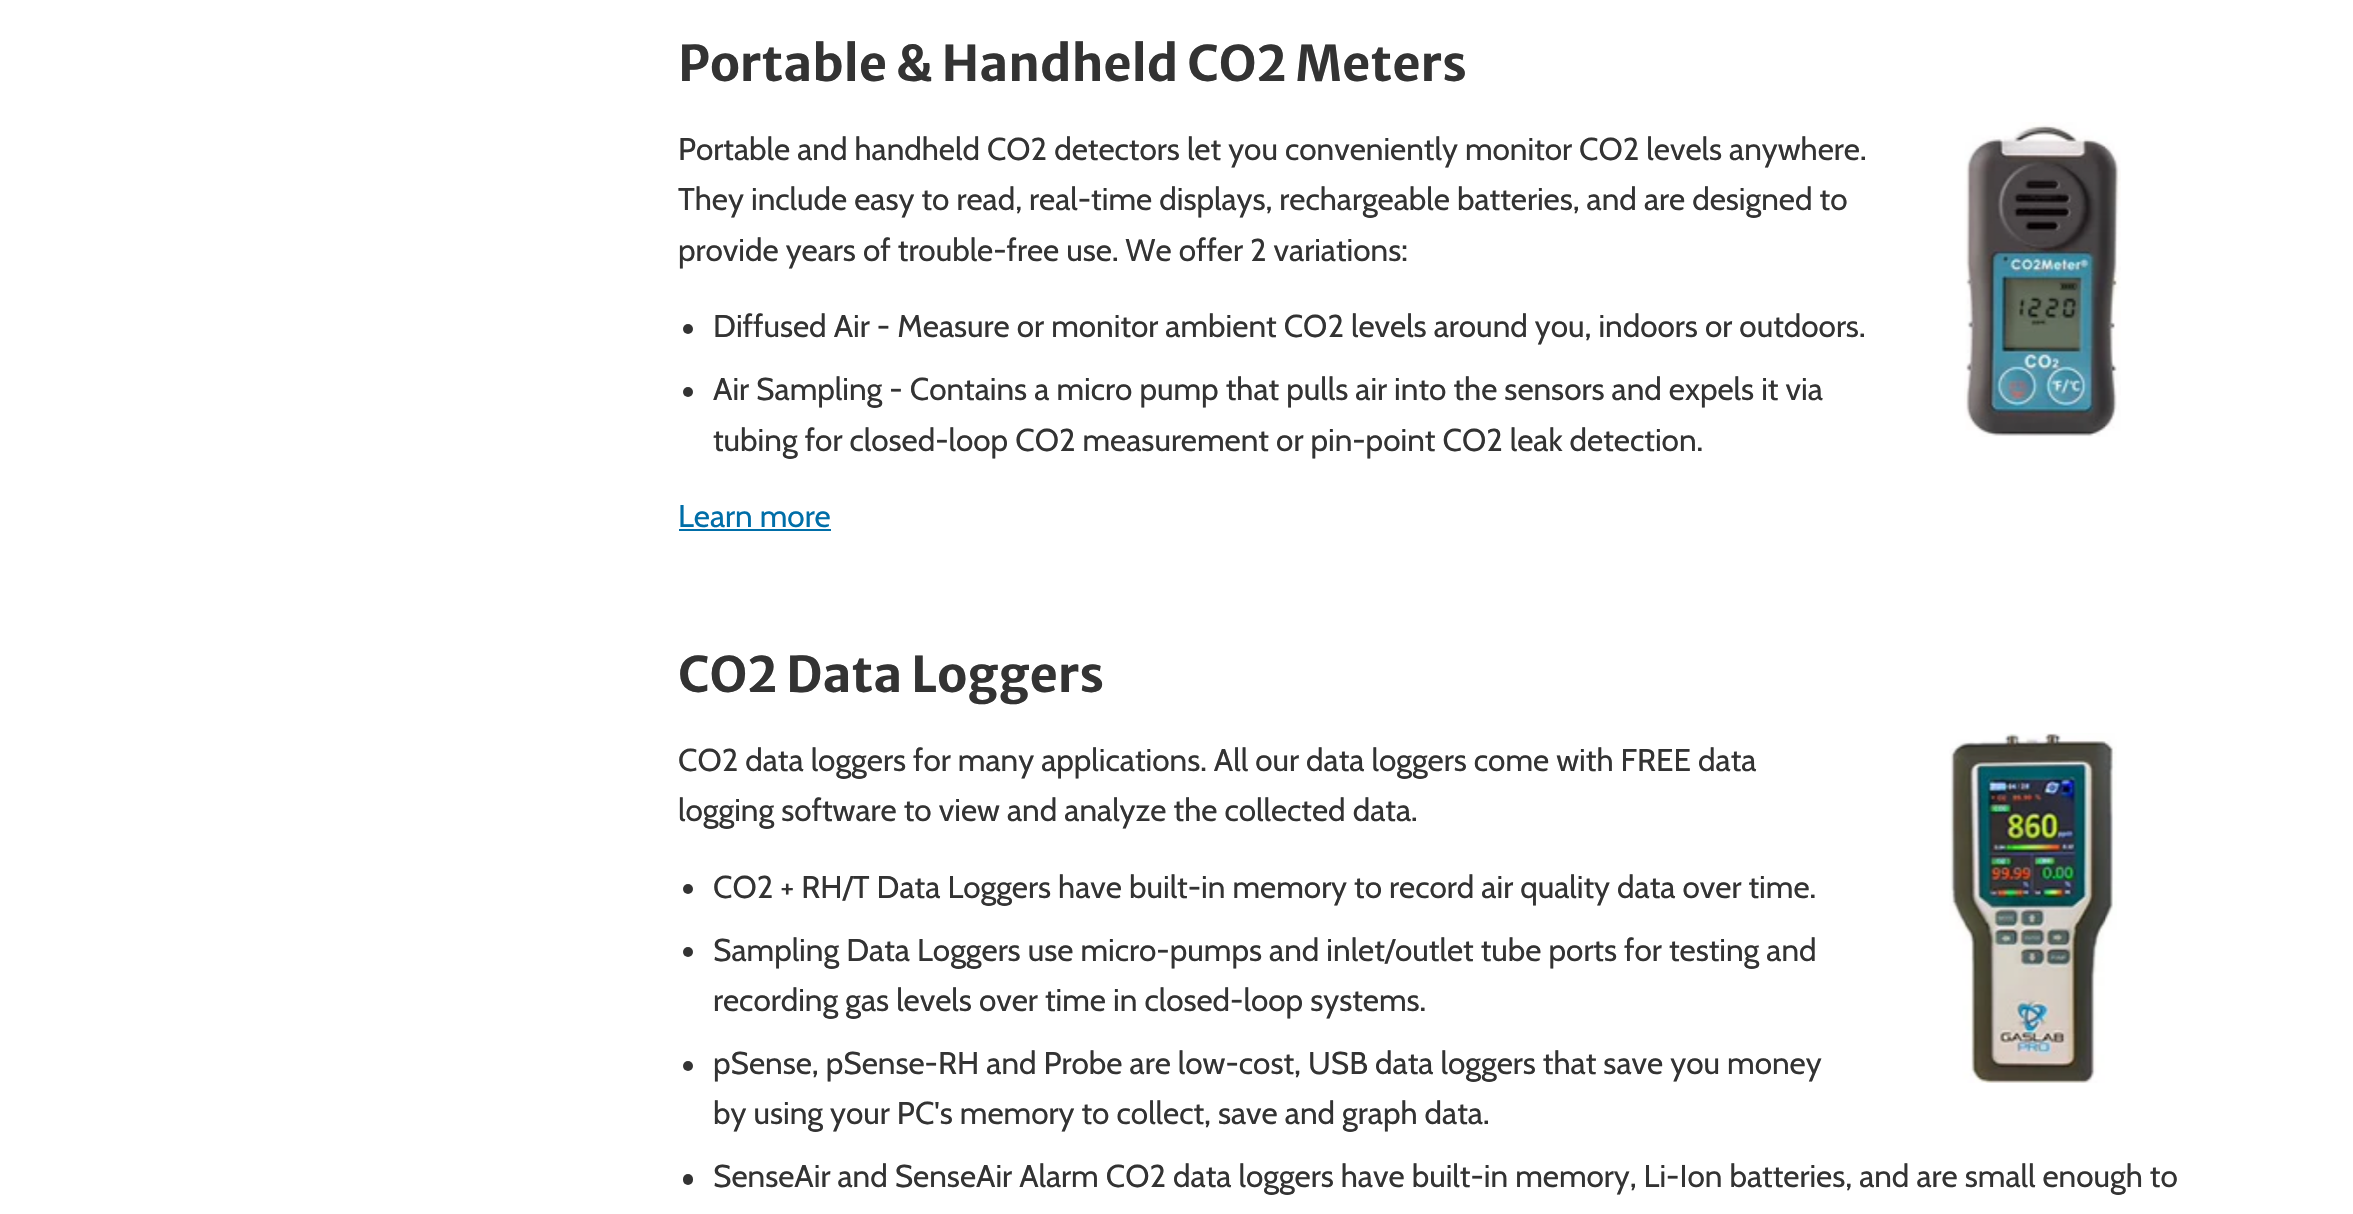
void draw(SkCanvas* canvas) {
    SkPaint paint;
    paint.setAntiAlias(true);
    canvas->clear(0xFFFFFFFF);
    SkFont font1(fontMgr->matchFamilyStyle("Merriweather Sans", SkFontStyle::Bold()), 49);
    font1.setSubpixel(true);
    paint.setColor(0xFF333333);
    canvas->drawString("Portable & Handheld CO2 Meters", 678, 81, font1, paint);
    SkFont font2(fontMgr->matchFamilyStyle("Cabin", SkFontStyle::Normal()), 31.5f);
    font2.setSubpixel(true);
    canvas->drawString("Portable and handheld CO2 detectors let you conveniently monitor CO2 levels anywhere.", 678, 160, font2, paint);
    canvas->drawString("They include easy to read, real-time displays, rechargeable batteries, and are designed to", 678, 210, font2, paint);
    canvas->drawString("provide years of trouble-free use. We offer 2 variations:", 678, 261, font2, paint);
    canvas->drawImageRect(SkImages::DeferredFromEncodedData(SkData::MakeFromFileName("img1.png")), SkRect::MakeXYWH(1964, 122, 157, 315), SkSamplingOptions());
    canvas->drawCircle(688, 329, 5, paint);
    canvas->drawString("Diffused Air - Measure or monitor ambient CO2 levels around you, indoors or outdoors.", 713, 337, font2, paint);
    canvas->drawCircle(688, 392, 5, paint);
    canvas->drawString("Air Sampling - Contains a micro pump that pulls air into the sensors and expels it via", 713, 400, font2, paint);
    canvas->drawString("tubing for closed-loop CO2 measurement or pin-point CO2 leak detection.", 713, 451, font2, paint);
    paint.setColor(0xFF006EA8);
    canvas->drawString("Learn more", 678, 527, font2, paint);
    canvas->drawRect(SkRect::MakeXYWH(679, 529, 152, 2), paint);
    paint.setColor(0xFF333333);
    canvas->drawString("CO2 Data Loggers", 678, 692, font1, paint);
    canvas->drawString("CO2 data loggers for many applications. All our data loggers come with FREE data", 678, 771, font2, paint);
    canvas->drawString("logging software to view and analyze the collected data.", 678, 821, font2, paint);
    canvas->drawImageRect(SkImages::DeferredFromEncodedData(SkData::MakeFromFileName("img2.png")), SkRect::MakeXYWH(1949, 733, 168, 350), SkSamplingOptions());
    canvas->drawCircle(688, 889, 5, paint);
    canvas->drawString("CO2 + RH/T Data Loggers have built-in memory to record air quality data over time.", 713, 898, font2, paint);
    canvas->drawCircle(688, 952, 5, paint);
    canvas->drawString("Sampling Data Loggers use micro-pumps and inlet/outlet tube ports for testing and", 713, 961, font2, paint);
    canvas->drawString("recording gas levels over time in closed-loop systems.", 713, 1011, font2, paint);
    canvas->drawCircle(688, 1066, 5, paint);
    canvas->drawString("pSense, pSense-RH and Probe are low-cost, USB data loggers that save you money", 713, 1074, font2, paint);
    canvas->drawString("by using your PC's memory to collect, save and graph data.", 713, 1124, font2, paint);
    canvas->drawRoundRect(SkRect::MakeXYWH(683, 1174, 10, 11), 5, 5, paint);
    canvas->drawString("SenseAir and SenseAir Alarm CO2 data loggers have built-in memory, Li-Ion batteries, and are small enough to", 713, 1187, font2, paint);
}
